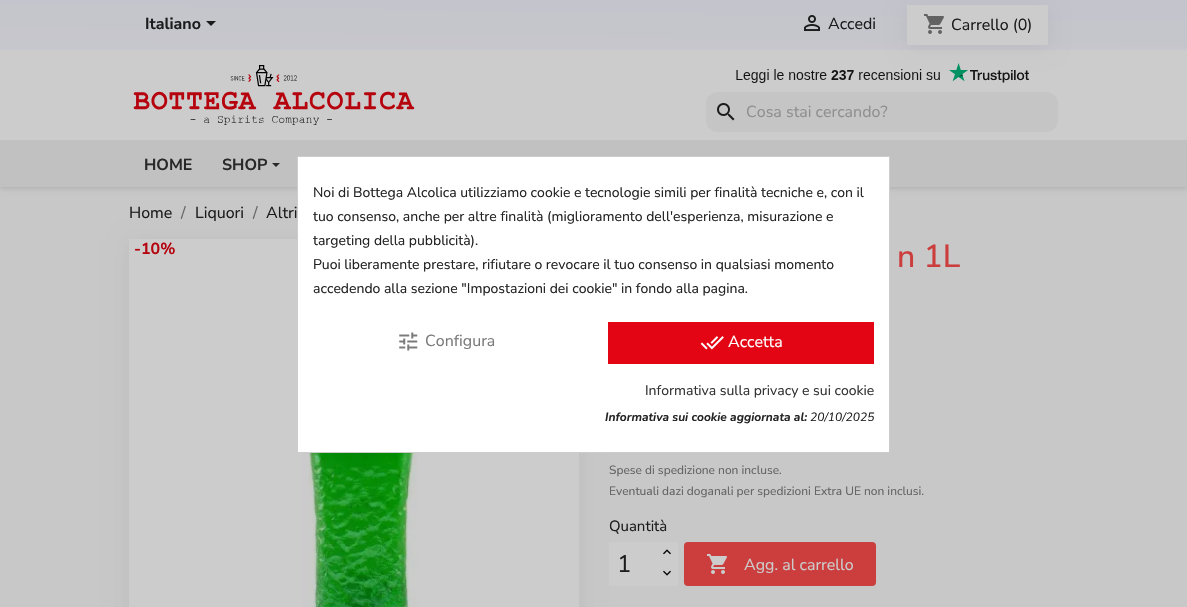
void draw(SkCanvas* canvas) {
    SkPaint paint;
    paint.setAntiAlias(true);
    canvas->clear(0xFFC8C8C8);
    paint.setColor(0x1C000000);
    paint.setMaskFilter(SkMaskFilter::MakeBlur(kNormal_SkBlurStyle, 2.5f));
    canvas->drawRect(SkRect::MakeXYWH(0, 2, 1187, 187), paint);
    paint.setMaskFilter(nullptr);
    {
        const SkColor colors[] = {0xFFC6C7CC, 0xFFC1C2CC, 0xFFCCCCCC};
        const float stops[] = {0, 0.3f, 1};
        const SkPoint ends[] = {{598, -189}, {592, 197}};
        paint.setShader(SkGradientShader::MakeLinear(ends, colors, stops, 3, SkTileMode::kClamp));
        paint.setAlpha(255);
    }
    canvas->drawRect(SkRect::MakeXYWH(0, 0, 1187, 50), paint);
    SkFont font1(fontMgr->matchFamilyStyle("Nunito Sans", SkFontStyle::Bold()), 16);
    font1.setSubpixel(true);
    paint.setShader(nullptr);
    paint.setColor(0xFF1C1C1C);
    canvas->drawString("Italiano", 145, 29, font1, paint);
    canvas->drawPath(SkPathBuilder().moveTo(206, 21).lineTo(216, 21).lineTo(211, 26).close().detach(), paint);
    canvas->drawImageRect(SkImages::DeferredFromEncodedData(SkData::MakeFromFileName("img1.png")), SkRect::MakeXYWH(804, 15, 16, 16), SkSamplingOptions());
    SkFont font2(fontMgr->matchFamilyStyle("Nunito Sans", SkFontStyle::Normal()), 16);
    font2.setSubpixel(true);
    canvas->drawString("Accedi", 828, 29, font2, paint);
    paint.setColor(0xFFCCCCCC);
    canvas->drawRect(SkRect::MakeXYWH(0, 50, 1187, 90), paint);
    paint.setColor(0x0F000000);
    paint.setMaskFilter(SkMaskFilter::MakeBlur(kNormal_SkBlurStyle, 10));
    canvas->drawRect(SkRect::MakeXYWH(907, 8, 141, 40), paint);
    paint.setMaskFilter(nullptr);
    paint.setColor(0xFFCCCCCC);
    canvas->drawRect(SkRect::MakeXYWH(907, 5, 141, 40), paint);
    canvas->drawImageRect(SkImages::DeferredFromEncodedData(SkData::MakeFromFileName("img2.png")), SkRect::MakeXYWH(924, 14, 20, 20), SkSamplingOptions());
    paint.setColor(0xFF1C1C1C);
    canvas->drawString("Carrello (0)", 951, 30, font2, paint);
    canvas->drawImageRect(SkImages::DeferredFromEncodedData(SkData::MakeFromFileName("img3.png")), SkRect::MakeXYWH(133, 65, 282, 60), SkSamplingOptions());
    canvas->drawImageRect(SkImages::DeferredFromEncodedData(SkData::MakeFromFileName("img4.png")), SkRect::MakeXYWH(736, 63, 293, 20), SkSamplingOptions());
    paint.setColor(0xFFC5C5C5);
    canvas->drawRoundRect(SkRect::MakeXYWH(706, 92, 352, 40), 12, 12, paint);
    canvas->drawImageRect(SkImages::DeferredFromEncodedData(SkData::MakeFromFileName("img5.png")), SkRect::MakeXYWH(717, 103, 18, 18), SkSamplingOptions());
    paint.setColor(0xFF8F8F8F);
    canvas->drawString("Cosa stai cercando?", 746, 117, font2, paint);
    paint.setColor(0xFFC1C1C1);
    canvas->drawRect(SkRect::MakeXYWH(0, 140, 1187, 47), paint);
    paint.setColor(0xFF292929);
    canvas->drawString("HOME", 144, 170, font1, paint);
    canvas->drawString("SHOP", 222, 170, font1, paint);
    canvas->drawPath(SkPathBuilder().moveTo(272, 163).lineTo(280, 163).lineTo(276, 167).close().detach(), paint);
    paint.setColor(0xFF1C1C1C);
    canvas->drawString("Home", 129, 218, font2, paint);
    paint.setColor(0xFF626262);
    canvas->drawString("/", 181, 218, font2, paint);
    paint.setColor(0xFF1C1C1C);
    canvas->drawString("Liquori", 195, 218, font2, paint);
    paint.setColor(0xFF626262);
    canvas->drawString("/", 253, 218, font2, paint);
    paint.setColor(0xFF1C1C1C);
    canvas->drawString("Altri", 266, 218, font2, paint);
    paint.setColor(0x0F000000);
    paint.setMaskFilter(SkMaskFilter::MakeBlur(kNormal_SkBlurStyle, 10));
    canvas->drawRect(SkRect::MakeXYWH(129, 242, 450, 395), paint);
    paint.setMaskFilter(nullptr);
    paint.setColor(0xFFCCCCCC);
    canvas->drawRect(SkRect::MakeXYWH(129, 239, 450, 368), paint);
    canvas->drawImageRect(SkImages::DeferredFromEncodedData(SkData::MakeFromFileName("img6.png")), SkRect::MakeXYWH(302, 453, 116, 154), SkSamplingOptions());
    paint.setColor(0xFFB6040F);
    canvas->drawString("-10%", 134, 254, font1, paint);
    SkFont font3(fontMgr->matchFamilyStyle("Nunito Sans", SkFontStyle(500, SkFontStyle::kNormal_Width, SkFontStyle::kUpright_Slant)), 32);
    font3.setSubpixel(true);
    paint.setColor(0xFFCC3D3D);
    canvas->drawString("n 1L", 897, 267, font3, paint);
    SkFont font4(fontMgr->matchFamilyStyle("Nunito Sans", SkFontStyle::Normal()), 12);
    font4.setSubpixel(true);
    paint.setColor(0xFF626262);
    canvas->drawString("Spese di spedizione non incluse.", 609, 474, font4, paint);
    canvas->drawString("Eventuali dazi doganali per spedizioni Extra UE non inclusi.", 609, 495, font4, paint);
    SkFont font5(fontMgr->matchFamilyStyle("Nunito Sans", SkFontStyle::Normal()), 15);
    font5.setSubpixel(true);
    paint.setColor(0xFF1C1C1C);
    canvas->drawString("Quantità", 609, 531, font5, paint);
    paint.setColor(0xFFCCCCCC);
    canvas->drawRect(SkRect::MakeXYWH(609, 542, 69, 44), paint);
    canvas->drawImageRect(SkImages::DeferredFromEncodedData(SkData::MakeFromFileName("img7.png")), SkRect::MakeXYWH(663, 549, 8, 6), SkSamplingOptions());
    canvas->drawImageRect(SkImages::DeferredFromEncodedData(SkData::MakeFromFileName("img8.png")), SkRect::MakeXYWH(663, 570, 8, 6), SkSamplingOptions());
    SkFont font6(fontMgr->matchFamilyStyle("Nunito Sans", SkFontStyle::Normal()), 24);
    font6.setSubpixel(true);
    paint.setColor(0xFF1C1C1C);
    canvas->drawString("1", 617, 572, font6, paint);
    paint.setColor(0xFFCC3D3D);
    canvas->drawRoundRect(SkRect::MakeXYWH(684, 542, 192, 44), 4, 4, paint);
    canvas->drawImageRect(SkImages::DeferredFromEncodedData(SkData::MakeFromFileName("img9.png")), SkRect::MakeXYWH(707, 554, 20, 20), SkSamplingOptions());
    paint.setColor(0xFFCCCCCC);
    canvas->drawString("Agg. al carrello", 744, 570, font2, paint);
    paint.setColor(0xFFFFFFFF);
    canvas->drawRect(SkRect::MakeXYWH(297.5f, 156.5f, 592, 296), paint);
    paint.setStyle(SkPaint::kStroke_Style);
    paint.setStrokeWidth(1);
    paint.setColor(0xFFCCCCCC);
    canvas->drawRect(SkRect::MakeXYWH(297.5f, 156.5f, 592, 296), paint);
    SkFont font7(fontMgr->matchFamilyStyle("Nunito Sans", SkFontStyle::Normal()), 14);
    font7.setSubpixel(true);
    paint.setStyle(SkPaint::kFill_Style);
    paint.setColor(0xFF232323);
    canvas->drawString("Noi di Bottega Alcolica utilizziamo cookie e tecnologie simili per finalità tecniche e, con il", 313, 197, font7, paint);
    canvas->drawString("tuo consenso, anche per altre finalità (miglioramento dell'esperienza, misurazione e", 313, 221, font7, paint);
    canvas->drawString("targeting della pubblicità).", 313, 245, font7, paint);
    canvas->drawString("Puoi liberamente prestare, rifiutare o revocare il tuo consenso in qualsiasi momento", 313, 269, font7, paint);
    canvas->drawString("accedendo alla sezione \"Impostazioni dei cookie\" in fondo alla pagina.", 313, 293, font7, paint);
    canvas->drawImageRect(SkImages::DeferredFromEncodedData(SkData::MakeFromFileName("img10.png")), SkRect::MakeXYWH(399, 332, 19, 19), SkSamplingOptions());
    paint.setColor(0xFF7A7A7A);
    canvas->drawString("Configura", 425, 346, font2, paint);
    paint.setColor(0xFFE30513);
    canvas->drawRect(SkRect::MakeXYWH(608, 322, 266, 42), paint);
    canvas->drawImageRect(SkImages::DeferredFromEncodedData(SkData::MakeFromFileName("img11.png")), SkRect::MakeXYWH(700, 336, 24, 14), SkSamplingOptions());
    paint.setColor(0xFFFFFFFF);
    canvas->drawString("Accetta", 728, 347, font2, paint);
    paint.setColor(0xFF333333);
    canvas->drawString("Informativa sulla privacy e sui cookie", 645, 395, font7, paint);
    SkFont font8(fontMgr->matchFamilyStyle("Nunito Sans", SkFontStyle::BoldItalic()), 12);
    font8.setSubpixel(true);
    paint.setColor(0xFF232323);
    canvas->drawString("Informativa sui cookie aggiornata al:", 605, 421, font8, paint);
    SkFont font9(fontMgr->matchFamilyStyle("Nunito Sans", SkFontStyle::Italic()), 12);
    font9.setSubpixel(true);
    canvas->drawString("20/10/2025", 810, 421, font9, paint);
}
